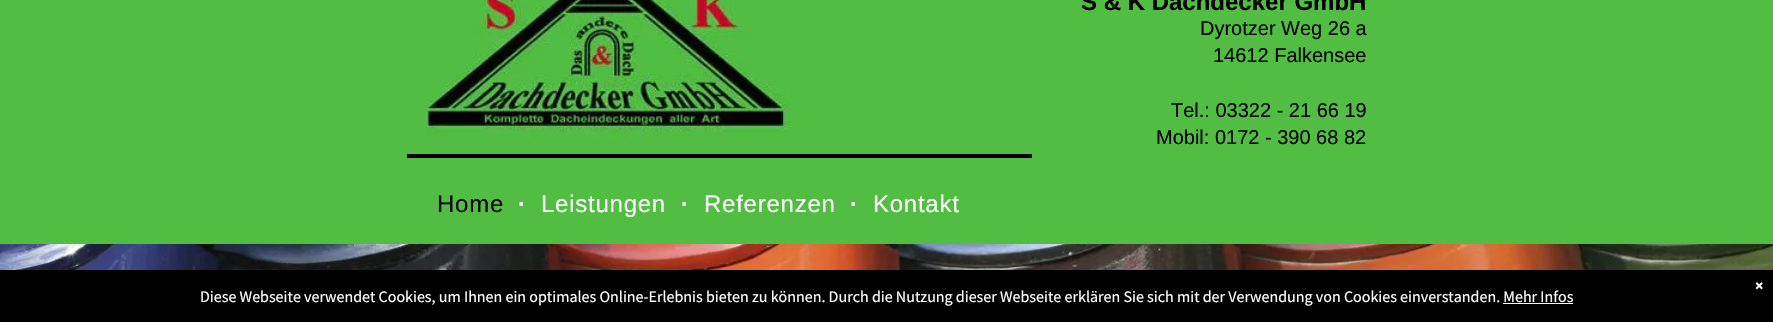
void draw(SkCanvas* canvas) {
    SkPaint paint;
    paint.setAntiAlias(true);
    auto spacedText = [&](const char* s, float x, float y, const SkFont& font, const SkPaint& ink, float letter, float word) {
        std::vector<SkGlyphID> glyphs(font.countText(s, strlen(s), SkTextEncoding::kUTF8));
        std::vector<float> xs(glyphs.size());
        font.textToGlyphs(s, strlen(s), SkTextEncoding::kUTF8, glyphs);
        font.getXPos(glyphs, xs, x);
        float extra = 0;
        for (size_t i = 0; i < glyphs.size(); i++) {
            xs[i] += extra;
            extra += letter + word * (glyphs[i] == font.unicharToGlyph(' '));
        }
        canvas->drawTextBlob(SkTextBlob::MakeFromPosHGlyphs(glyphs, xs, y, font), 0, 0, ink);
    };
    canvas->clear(0xFF51BD43);
    SkFont font1(fontMgr->matchFamilyStyle("Liberation Sans", SkFontStyle::Bold()), 24);
    font1.setSubpixel(true);
    paint.setColor(0xFF000000);
    canvas->drawString("S & K Dachdecker GmbH", 1081, 10, font1, paint);
    SkFont font2(fontMgr->matchFamilyStyle("Liberation Sans", SkFontStyle::Normal()), 20);
    font2.setSubpixel(true);
    canvas->drawString("Dyrotzer Weg 26 a", 1200, 35, font2, paint);
    canvas->drawString("14612 Falkensee", 1213, 62, font2, paint);
    canvas->drawString("Tel.: 03322 - 21 66 19", 1171, 117, font2, paint);
    canvas->drawString("Mobil: 0172 - 390 68 82", 1156, 144, font2, paint);
    canvas->drawImageRect(SkImages::DeferredFromEncodedData(SkData::MakeFromFileName("img1.png")), SkRect::MakeXYWH(425, 0, 366, 139), SkSamplingOptions());
    canvas->drawRect(SkRect::MakeXYWH(407, 154, 625, 4), paint);
    SkFont font3(fontMgr->matchFamilyStyle("Liberation Sans", SkFontStyle::Normal()), 24);
    font3.setSubpixel(true);
    spacedText("Home", 437, 212, font3, paint, 0.75f, 0);
    paint.setColor(0xFFFFFFFF);
    canvas->drawString("·", 518, 212, font1, paint);
    spacedText("Leistungen", 541, 212, font3, paint, 0.75f, 0);
    canvas->drawString("·", 681, 212, font1, paint);
    spacedText("Referenzen", 704, 212, font3, paint, 0.75f, 0);
    canvas->drawString("·", 850, 212, font1, paint);
    spacedText("Kontakt", 873, 212, font3, paint, 0.75f, 0);
    canvas->drawImageRect(SkImages::DeferredFromEncodedData(SkData::MakeFromFileName("img2.png")), SkRect::MakeXYWH(0, 244, 1773, 26), SkSamplingOptions());
    paint.setColor(0xFF000000);
    canvas->drawRect(SkRect::MakeXYWH(0, 270, 1773, 52), paint);
    SkFont font4(fontMgr->matchFamilyStyle("Source Sans Pro", SkFontStyle::Bold()), 16);
    font4.setSubpixel(true);
    paint.setColor(0xFFFFFFFF);
    canvas->drawString("×", 1755, 291, font4, paint);
    SkFont font5(fontMgr->matchFamilyStyle("Source Sans Pro", SkFontStyle::Normal()), 16);
    font5.setSubpixel(true);
    canvas->drawString("Diese Webseite verwendet Cookies, um Ihnen ein optimales Online-Erlebnis bieten zu können. Durch die Nutzung dieser Webseite erklären Sie sich mit der Verwendung von Cookies einverstanden. Mehr Infos", 200, 302, font5, paint);
    canvas->drawRect(SkRect::MakeXYWH(1503, 303, 70, 1), paint);
}
